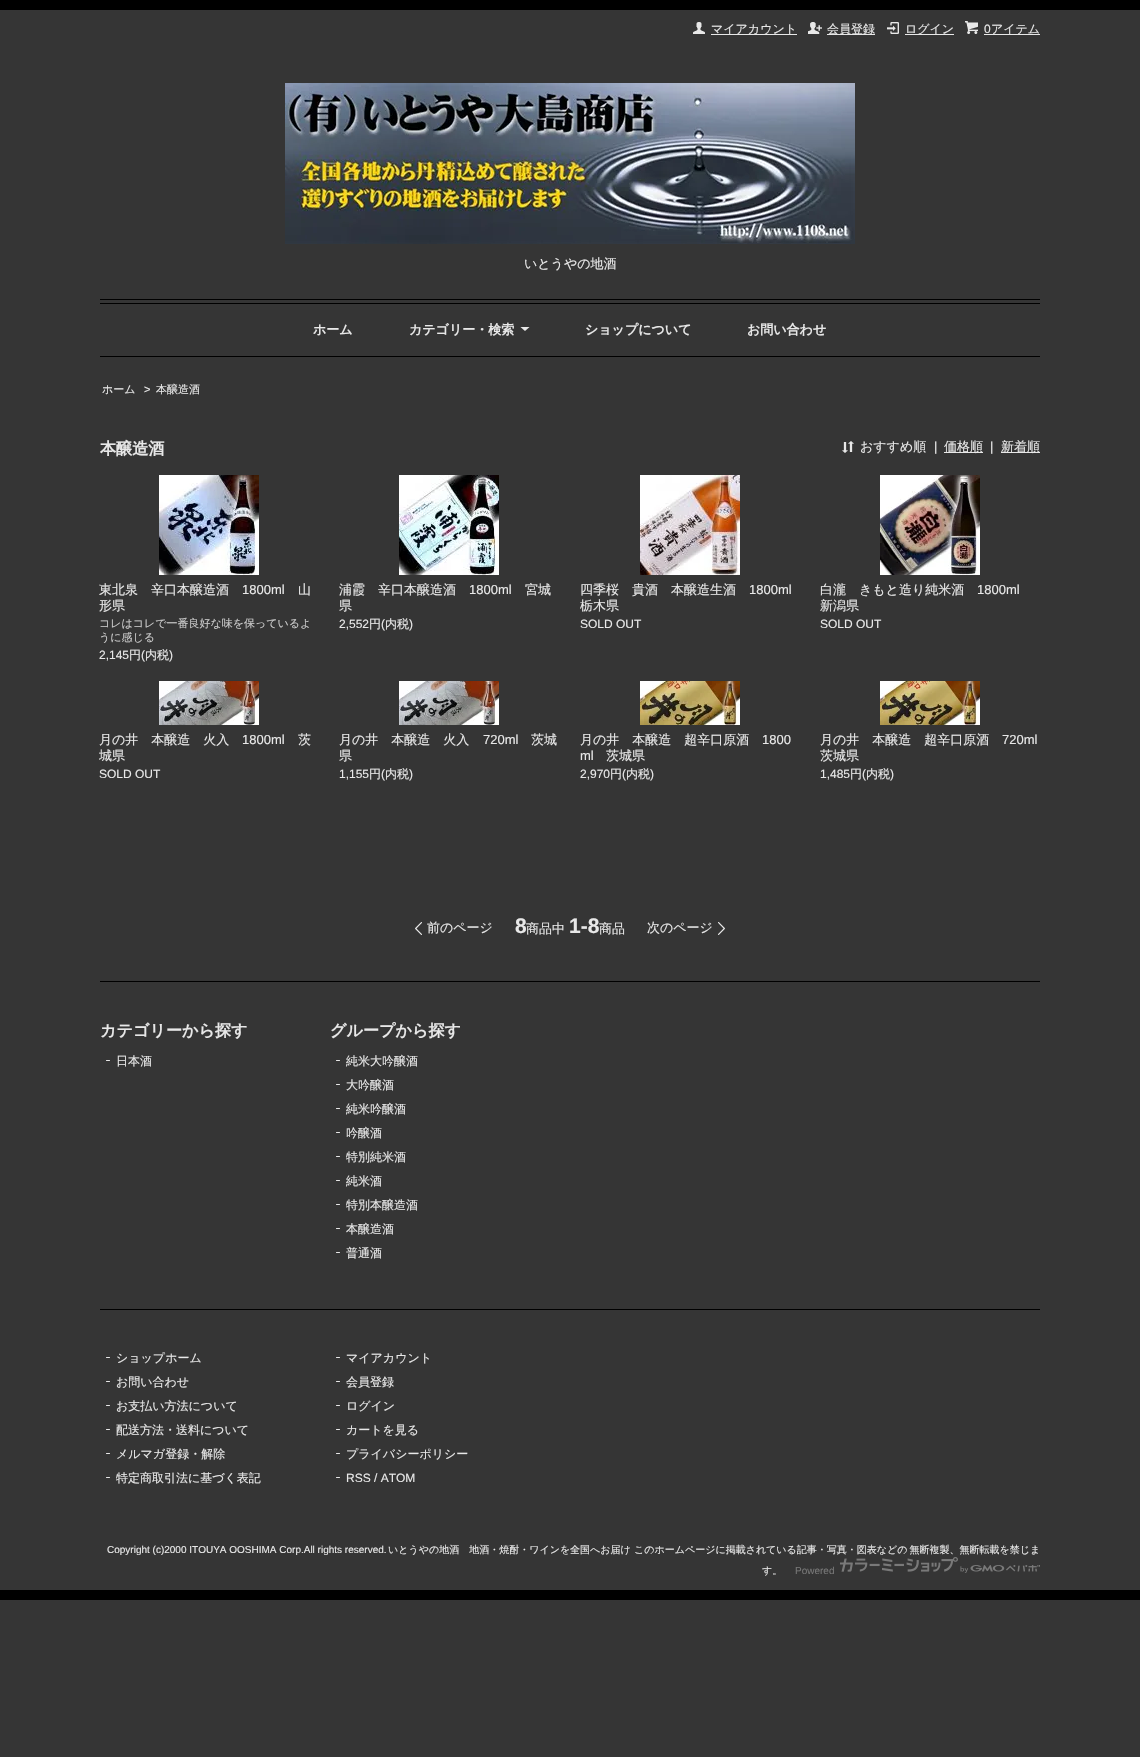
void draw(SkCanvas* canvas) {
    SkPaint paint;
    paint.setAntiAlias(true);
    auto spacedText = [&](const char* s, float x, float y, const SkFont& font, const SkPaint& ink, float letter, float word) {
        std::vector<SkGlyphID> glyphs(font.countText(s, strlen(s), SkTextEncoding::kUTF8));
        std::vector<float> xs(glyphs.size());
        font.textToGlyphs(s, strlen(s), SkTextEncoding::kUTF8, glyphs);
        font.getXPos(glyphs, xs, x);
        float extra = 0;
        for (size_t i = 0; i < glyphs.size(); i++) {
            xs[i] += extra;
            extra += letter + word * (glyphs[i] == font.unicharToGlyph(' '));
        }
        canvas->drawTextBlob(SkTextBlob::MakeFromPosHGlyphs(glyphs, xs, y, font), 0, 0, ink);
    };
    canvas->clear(0xFF353535);
    paint.setColor(0xFF000000);
    canvas->drawRect(SkRect::MakeXYWH(0, 0, 1140, 10), paint);
    canvas->drawRect(SkRect::MakeXYWH(0, 1590, 1140, 10), paint);
    canvas->drawImageRect(SkImages::DeferredFromEncodedData(SkData::MakeFromFileName("img1.png")), SkRect::MakeXYWH(693, 22, 12, 12), SkSamplingOptions());
    paint.setColor(0xFFE8E8E8);
    canvas->drawRect(SkRect::MakeXYWH(711, 34, 86, 1), paint);
    SkFont font1(fontMgr->matchFamilyStyle("WenQuanYi Zen Hei", SkFontStyle(500, SkFontStyle::kNormal_Width, SkFontStyle::kUpright_Slant)), 12);
    font1.setSubpixel(true);
    canvas->drawString("マイアカウント", 711, 33, font1, paint);
    canvas->drawImageRect(SkImages::DeferredFromEncodedData(SkData::MakeFromFileName("img2.png")), SkRect::MakeXYWH(808, 22, 14, 12), SkSamplingOptions());
    canvas->drawRect(SkRect::MakeXYWH(827, 34, 48, 1), paint);
    canvas->drawString("会員登録", 827, 33, font1, paint);
    canvas->drawImageRect(SkImages::DeferredFromEncodedData(SkData::MakeFromFileName("img3.png")), SkRect::MakeXYWH(887, 22, 12, 12), SkSamplingOptions());
    canvas->drawRect(SkRect::MakeXYWH(905, 34, 49, 1), paint);
    canvas->drawString("ログイン", 905, 33, font1, paint);
    canvas->drawImageRect(SkImages::DeferredFromEncodedData(SkData::MakeFromFileName("img4.png")), SkRect::MakeXYWH(965, 21, 13, 13), SkSamplingOptions());
    SkFont font2(fontMgr->matchFamilyStyle("Liberation Sans", SkFontStyle::Normal()), 12);
    font2.setSubpixel(true);
    canvas->drawString("0", 984, 33, font2, paint);
    canvas->drawRect(SkRect::MakeXYWH(984, 34, 56, 1), paint);
    canvas->drawString("アイテム", 991, 33, font1, paint);
    paint.setColor(0xFF000000);
    canvas->drawRect(SkRect::MakeXYWH(100, 299, 940, 1), paint);
    canvas->drawImageRect(SkImages::DeferredFromEncodedData(SkData::MakeFromFileName("img5.png")), SkRect::MakeXYWH(285, 83, 570, 161), SkSamplingOptions());
    SkFont font3(fontMgr->matchFamilyStyle("WenQuanYi Zen Hei", SkFontStyle(500, SkFontStyle::kNormal_Width, SkFontStyle::kUpright_Slant)), 13);
    font3.setSubpixel(true);
    paint.setColor(0xFFE8E8E8);
    canvas->drawString("いとうやの地酒", 524, 268, font3, paint);
    paint.setColor(0xFF000000);
    canvas->drawRect(SkRect::MakeXYWH(100, 303, 940, 1), paint);
    canvas->drawRect(SkRect::MakeXYWH(100, 356, 940, 1), paint);
    SkFont font4(fontMgr->matchFamilyStyle("WenQuanYi Zen Hei", SkFontStyle::Bold()), 13);
    font4.setSubpixel(true);
    paint.setColor(0xFFE8E8E8);
    canvas->drawString("ホーム", 313, 334, font4, paint);
    canvas->drawString("カテゴリー・検索", 409, 334, font4, paint);
    canvas->drawImageRect(SkImages::DeferredFromEncodedData(SkData::MakeFromFileName("img6.png")), SkRect::MakeXYWH(520, 327, 10, 4), SkSamplingOptions());
    canvas->drawString("ショップについて", 585, 334, font4, paint);
    canvas->drawString("お問い合わせ", 747, 334, font4, paint);
    SkFont font5(fontMgr->matchFamilyStyle("WenQuanYi Zen Hei", SkFontStyle(500, SkFontStyle::kNormal_Width, SkFontStyle::kUpright_Slant)), 11);
    font5.setSubpixel(true);
    canvas->drawString("ホーム", 102, 393, font5, paint);
    SkFont font6(fontMgr->matchFamilyStyle("Liberation Sans", SkFontStyle::Normal()), 11);
    font6.setSubpixel(true);
    canvas->drawString(">", 144, 393, font6, paint);
    canvas->drawString("本醸造酒", 156, 393, font5, paint);
    SkFont font7(fontMgr->matchFamilyStyle("WenQuanYi Zen Hei", SkFontStyle::Bold()), 16.1f);
    font7.setSubpixel(true);
    canvas->drawString("本醸造酒", 100, 454, font7, paint);
    canvas->drawImageRect(SkImages::DeferredFromEncodedData(SkData::MakeFromFileName("img7.png")), SkRect::MakeXYWH(842, 441, 12, 12), SkSamplingOptions());
    canvas->drawString("おすすめ順", 860, 451, font3, paint);
    SkFont font8(fontMgr->matchFamilyStyle("Liberation Sans", SkFontStyle::Normal()), 13);
    font8.setSubpixel(true);
    canvas->drawString("|", 934, 451, font8, paint);
    canvas->drawRect(SkRect::MakeXYWH(944, 452, 39, 1), paint);
    canvas->drawString("価格順", 944, 451, font3, paint);
    canvas->drawString("|", 990, 451, font8, paint);
    canvas->drawRect(SkRect::MakeXYWH(1001, 452, 39, 1), paint);
    canvas->drawString("新着順", 1001, 451, font3, paint);
    canvas->drawImageRect(SkImages::DeferredFromEncodedData(SkData::MakeFromFileName("img8.png")), SkRect::MakeXYWH(159, 475, 100, 100), SkSamplingOptions());
    canvas->drawString("東北泉　辛口本醸造酒", 99, 594, font3, paint);
    canvas->drawString("1800ml", 242, 594, font8, paint);
    canvas->drawString("山", 298, 594, font3, paint);
    canvas->drawString("形県", 99, 610, font3, paint);
    paint.setColor(0xFFCCCCCC);
    canvas->drawString("コレはコレで一番良好な味を保っているよ", 99, 627, font5, paint);
    canvas->drawString("うに感じる", 99, 641, font5, paint);
    paint.setColor(0xFFE8E8E8);
    canvas->drawString("2,145", 99, 659, font2, paint);
    canvas->drawString("円", 129, 659, font1, paint);
    canvas->drawString("(", 141, 659, font2, paint);
    canvas->drawString("内税", 145, 659, font1, paint);
    canvas->drawString(")", 169, 659, font2, paint);
    canvas->drawImageRect(SkImages::DeferredFromEncodedData(SkData::MakeFromFileName("img9.png")), SkRect::MakeXYWH(399, 475, 100, 100), SkSamplingOptions());
    canvas->drawString("浦霞　辛口本醸造酒", 339, 594, font3, paint);
    canvas->drawString("1800ml", 469, 594, font8, paint);
    canvas->drawString("宮城", 525, 594, font3, paint);
    canvas->drawString("県", 339, 610, font3, paint);
    canvas->drawString("2,552", 339, 628, font2, paint);
    canvas->drawString("円", 369, 628, font1, paint);
    canvas->drawString("(", 381, 628, font2, paint);
    canvas->drawString("内税", 385, 628, font1, paint);
    canvas->drawString(")", 409, 628, font2, paint);
    canvas->drawImageRect(SkImages::DeferredFromEncodedData(SkData::MakeFromFileName("img10.png")), SkRect::MakeXYWH(640, 475, 100, 100), SkSamplingOptions());
    canvas->drawString("四季桜　貴酒　本醸造生酒", 580, 594, font3, paint);
    canvas->drawString("1800ml", 749, 594, font8, paint);
    canvas->drawString("栃木県", 580, 610, font3, paint);
    canvas->drawString("SOLD OUT", 580, 628, font2, paint);
    canvas->drawImageRect(SkImages::DeferredFromEncodedData(SkData::MakeFromFileName("img11.png")), SkRect::MakeXYWH(880, 475, 100, 100), SkSamplingOptions());
    canvas->drawString("白瀧　きもと造り純米酒", 820, 594, font3, paint);
    canvas->drawString("1800ml", 977, 594, font8, paint);
    canvas->drawString("新潟県", 820, 610, font3, paint);
    canvas->drawString("SOLD OUT", 820, 628, font2, paint);
    canvas->drawImageRect(SkImages::DeferredFromEncodedData(SkData::MakeFromFileName("img12.png")), SkRect::MakeXYWH(159, 681, 100, 44), SkSamplingOptions());
    canvas->drawString("月の井　本醸造　火入", 99, 744, font3, paint);
    canvas->drawString("1800ml", 242, 744, font8, paint);
    canvas->drawString("茨", 298, 744, font3, paint);
    canvas->drawString("城県", 99, 760, font3, paint);
    canvas->drawString("SOLD OUT", 99, 778, font2, paint);
    canvas->drawImageRect(SkImages::DeferredFromEncodedData(SkData::MakeFromFileName("img12.png")), SkRect::MakeXYWH(399, 681, 100, 44), SkSamplingOptions());
    canvas->drawString("月の井　本醸造　火入", 339, 744, font3, paint);
    canvas->drawString("720ml", 483, 744, font8, paint);
    canvas->drawString("茨城", 531, 744, font3, paint);
    canvas->drawString("県", 339, 760, font3, paint);
    canvas->drawString("1,155", 339, 778, font2, paint);
    canvas->drawString("円", 369, 778, font1, paint);
    canvas->drawString("(", 381, 778, font2, paint);
    canvas->drawString("内税", 385, 778, font1, paint);
    canvas->drawString(")", 409, 778, font2, paint);
    canvas->drawImageRect(SkImages::DeferredFromEncodedData(SkData::MakeFromFileName("img13.png")), SkRect::MakeXYWH(640, 681, 100, 44), SkSamplingOptions());
    canvas->drawString("月の井　本醸造　超辛口原酒", 580, 744, font3, paint);
    canvas->drawString("1800", 762, 744, font8, paint);
    canvas->drawString("ml", 580, 760, font8, paint);
    canvas->drawString("茨城県", 606, 760, font3, paint);
    canvas->drawString("2,970", 580, 778, font2, paint);
    canvas->drawString("円", 610, 778, font1, paint);
    canvas->drawString("(", 622, 778, font2, paint);
    canvas->drawString("内税", 626, 778, font1, paint);
    canvas->drawString(")", 650, 778, font2, paint);
    canvas->drawImageRect(SkImages::DeferredFromEncodedData(SkData::MakeFromFileName("img14.png")), SkRect::MakeXYWH(880, 681, 100, 44), SkSamplingOptions());
    canvas->drawString("月の井　本醸造　超辛口原酒", 820, 744, font3, paint);
    canvas->drawString("720ml", 1002, 744, font8, paint);
    canvas->drawString("茨城県", 820, 760, font3, paint);
    canvas->drawString("1,485", 820, 778, font2, paint);
    canvas->drawString("円", 850, 778, font1, paint);
    canvas->drawString("(", 862, 778, font2, paint);
    canvas->drawString("内税", 866, 778, font1, paint);
    canvas->drawString(")", 890, 778, font2, paint);
    canvas->drawImageRect(SkImages::DeferredFromEncodedData(SkData::MakeFromFileName("img15.png")), SkRect::MakeXYWH(415, 922, 7, 13), SkSamplingOptions());
    canvas->drawString("前のページ", 427, 932, font3, paint);
    SkFont font9(fontMgr->matchFamilyStyle("Liberation Sans", SkFontStyle::Bold()), 21);
    font9.setSubpixel(true);
    canvas->drawString("8", 515, 933, font9, paint);
    canvas->drawString("商品中", 526, 933, font3, paint);
    canvas->drawString("1-8", 569, 933, font9, paint);
    canvas->drawString("商品", 599, 933, font3, paint);
    canvas->drawString("次のページ", 647, 932, font3, paint);
    canvas->drawImageRect(SkImages::DeferredFromEncodedData(SkData::MakeFromFileName("img16.png")), SkRect::MakeXYWH(718, 922, 7, 13), SkSamplingOptions());
    paint.setColor(0xFF000000);
    canvas->drawRect(SkRect::MakeXYWH(100, 981, 940, 1), paint);
    paint.setColor(0xFFE8E8E8);
    canvas->drawString("カテゴリーから探す", 100, 1036, font7, paint);
    canvas->drawImageRect(SkImages::DeferredFromEncodedData(SkData::MakeFromFileName("img17.png")), SkRect::MakeXYWH(106, 1060, 4, 1), SkSamplingOptions());
    canvas->drawString("日本酒", 116, 1065, font1, paint);
    canvas->drawString("グループから探す", 330, 1036, font7, paint);
    canvas->drawImageRect(SkImages::DeferredFromEncodedData(SkData::MakeFromFileName("img17.png")), SkRect::MakeXYWH(336, 1060, 4, 1), SkSamplingOptions());
    canvas->drawString("純米大吟醸酒", 346, 1065, font1, paint);
    canvas->drawImageRect(SkImages::DeferredFromEncodedData(SkData::MakeFromFileName("img17.png")), SkRect::MakeXYWH(336, 1084, 4, 1), SkSamplingOptions());
    canvas->drawString("大吟醸酒", 346, 1089, font1, paint);
    canvas->drawImageRect(SkImages::DeferredFromEncodedData(SkData::MakeFromFileName("img17.png")), SkRect::MakeXYWH(336, 1108, 4, 1), SkSamplingOptions());
    canvas->drawString("純米吟醸酒", 346, 1113, font1, paint);
    canvas->drawImageRect(SkImages::DeferredFromEncodedData(SkData::MakeFromFileName("img17.png")), SkRect::MakeXYWH(336, 1132, 4, 1), SkSamplingOptions());
    canvas->drawString("吟醸酒", 346, 1137, font1, paint);
    canvas->drawImageRect(SkImages::DeferredFromEncodedData(SkData::MakeFromFileName("img17.png")), SkRect::MakeXYWH(336, 1156, 4, 1), SkSamplingOptions());
    canvas->drawString("特別純米酒", 346, 1161, font1, paint);
    canvas->drawImageRect(SkImages::DeferredFromEncodedData(SkData::MakeFromFileName("img17.png")), SkRect::MakeXYWH(336, 1180, 4, 1), SkSamplingOptions());
    canvas->drawString("純米酒", 346, 1185, font1, paint);
    canvas->drawImageRect(SkImages::DeferredFromEncodedData(SkData::MakeFromFileName("img17.png")), SkRect::MakeXYWH(336, 1204, 4, 1), SkSamplingOptions());
    canvas->drawString("特別本醸造酒", 346, 1209, font1, paint);
    canvas->drawImageRect(SkImages::DeferredFromEncodedData(SkData::MakeFromFileName("img17.png")), SkRect::MakeXYWH(336, 1228, 4, 1), SkSamplingOptions());
    canvas->drawString("本醸造酒", 346, 1233, font1, paint);
    canvas->drawImageRect(SkImages::DeferredFromEncodedData(SkData::MakeFromFileName("img17.png")), SkRect::MakeXYWH(336, 1252, 4, 1), SkSamplingOptions());
    canvas->drawString("普通酒", 346, 1257, font1, paint);
    paint.setColor(0xFF000000);
    canvas->drawRect(SkRect::MakeXYWH(100, 1309, 940, 1), paint);
    canvas->drawImageRect(SkImages::DeferredFromEncodedData(SkData::MakeFromFileName("img17.png")), SkRect::MakeXYWH(106, 1357, 4, 1), SkSamplingOptions());
    paint.setColor(0xFFE8E8E8);
    canvas->drawString("ショップホーム", 116, 1362, font1, paint);
    canvas->drawImageRect(SkImages::DeferredFromEncodedData(SkData::MakeFromFileName("img17.png")), SkRect::MakeXYWH(106, 1381, 4, 1), SkSamplingOptions());
    canvas->drawString("お問い合わせ", 116, 1386, font1, paint);
    canvas->drawImageRect(SkImages::DeferredFromEncodedData(SkData::MakeFromFileName("img17.png")), SkRect::MakeXYWH(106, 1405, 4, 1), SkSamplingOptions());
    canvas->drawString("お支払い方法について", 116, 1410, font1, paint);
    canvas->drawImageRect(SkImages::DeferredFromEncodedData(SkData::MakeFromFileName("img17.png")), SkRect::MakeXYWH(106, 1429, 4, 1), SkSamplingOptions());
    canvas->drawString("配送方法・送料について", 116, 1434, font1, paint);
    canvas->drawImageRect(SkImages::DeferredFromEncodedData(SkData::MakeFromFileName("img17.png")), SkRect::MakeXYWH(106, 1453, 4, 1), SkSamplingOptions());
    canvas->drawString("メルマガ登録・解除", 116, 1458, font1, paint);
    canvas->drawImageRect(SkImages::DeferredFromEncodedData(SkData::MakeFromFileName("img17.png")), SkRect::MakeXYWH(106, 1477, 4, 1), SkSamplingOptions());
    canvas->drawString("特定商取引法に基づく表記", 116, 1482, font1, paint);
    canvas->drawImageRect(SkImages::DeferredFromEncodedData(SkData::MakeFromFileName("img17.png")), SkRect::MakeXYWH(336, 1357, 4, 1), SkSamplingOptions());
    canvas->drawString("マイアカウント", 346, 1362, font1, paint);
    canvas->drawImageRect(SkImages::DeferredFromEncodedData(SkData::MakeFromFileName("img17.png")), SkRect::MakeXYWH(336, 1381, 4, 1), SkSamplingOptions());
    canvas->drawString("会員登録", 346, 1386, font1, paint);
    canvas->drawImageRect(SkImages::DeferredFromEncodedData(SkData::MakeFromFileName("img17.png")), SkRect::MakeXYWH(336, 1405, 4, 1), SkSamplingOptions());
    canvas->drawString("ログイン", 346, 1410, font1, paint);
    canvas->drawImageRect(SkImages::DeferredFromEncodedData(SkData::MakeFromFileName("img17.png")), SkRect::MakeXYWH(336, 1429, 4, 1), SkSamplingOptions());
    canvas->drawString("カートを見る", 346, 1434, font1, paint);
    canvas->drawImageRect(SkImages::DeferredFromEncodedData(SkData::MakeFromFileName("img17.png")), SkRect::MakeXYWH(336, 1453, 4, 1), SkSamplingOptions());
    canvas->drawString("プライバシーポリシー", 346, 1458, font1, paint);
    canvas->drawImageRect(SkImages::DeferredFromEncodedData(SkData::MakeFromFileName("img17.png")), SkRect::MakeXYWH(336, 1477, 4, 1), SkSamplingOptions());
    canvas->drawString("RSS / ATOM", 346, 1482, font2, paint);
    SkFont font10(fontMgr->matchFamilyStyle("Liberation Sans", SkFontStyle::Normal()), 10);
    font10.setSubpixel(true);
    canvas->drawString("Copyright (c)2000 ITOUYA OOSHIMA Corp.All rights reserved.", 107, 1553, font10, paint);
    SkFont font11(fontMgr->matchFamilyStyle("WenQuanYi Zen Hei", SkFontStyle(500, SkFontStyle::kNormal_Width, SkFontStyle::kUpright_Slant)), 10);
    font11.setSubpixel(true);
    canvas->drawString("いとうやの地酒　地酒・焼酎・ワインを全国へお届け", 388, 1553, font11, paint);
    spacedText("このホームページに掲載されている記事・写真・図表などの 無断複製、無断転載を禁じま", 634, 1553, font11, paint, 0, -1);
    canvas->drawString("す。", 762, 1574, font11, paint);
    paint.setColor(0xFF777777);
    canvas->drawString("Powered", 795, 1574, font10, paint);
    canvas->drawImageRect(SkImages::DeferredFromEncodedData(SkData::MakeFromFileName("img18.png")), SkRect::MakeXYWH(840, 1557, 200, 16), SkSamplingOptions());
}
